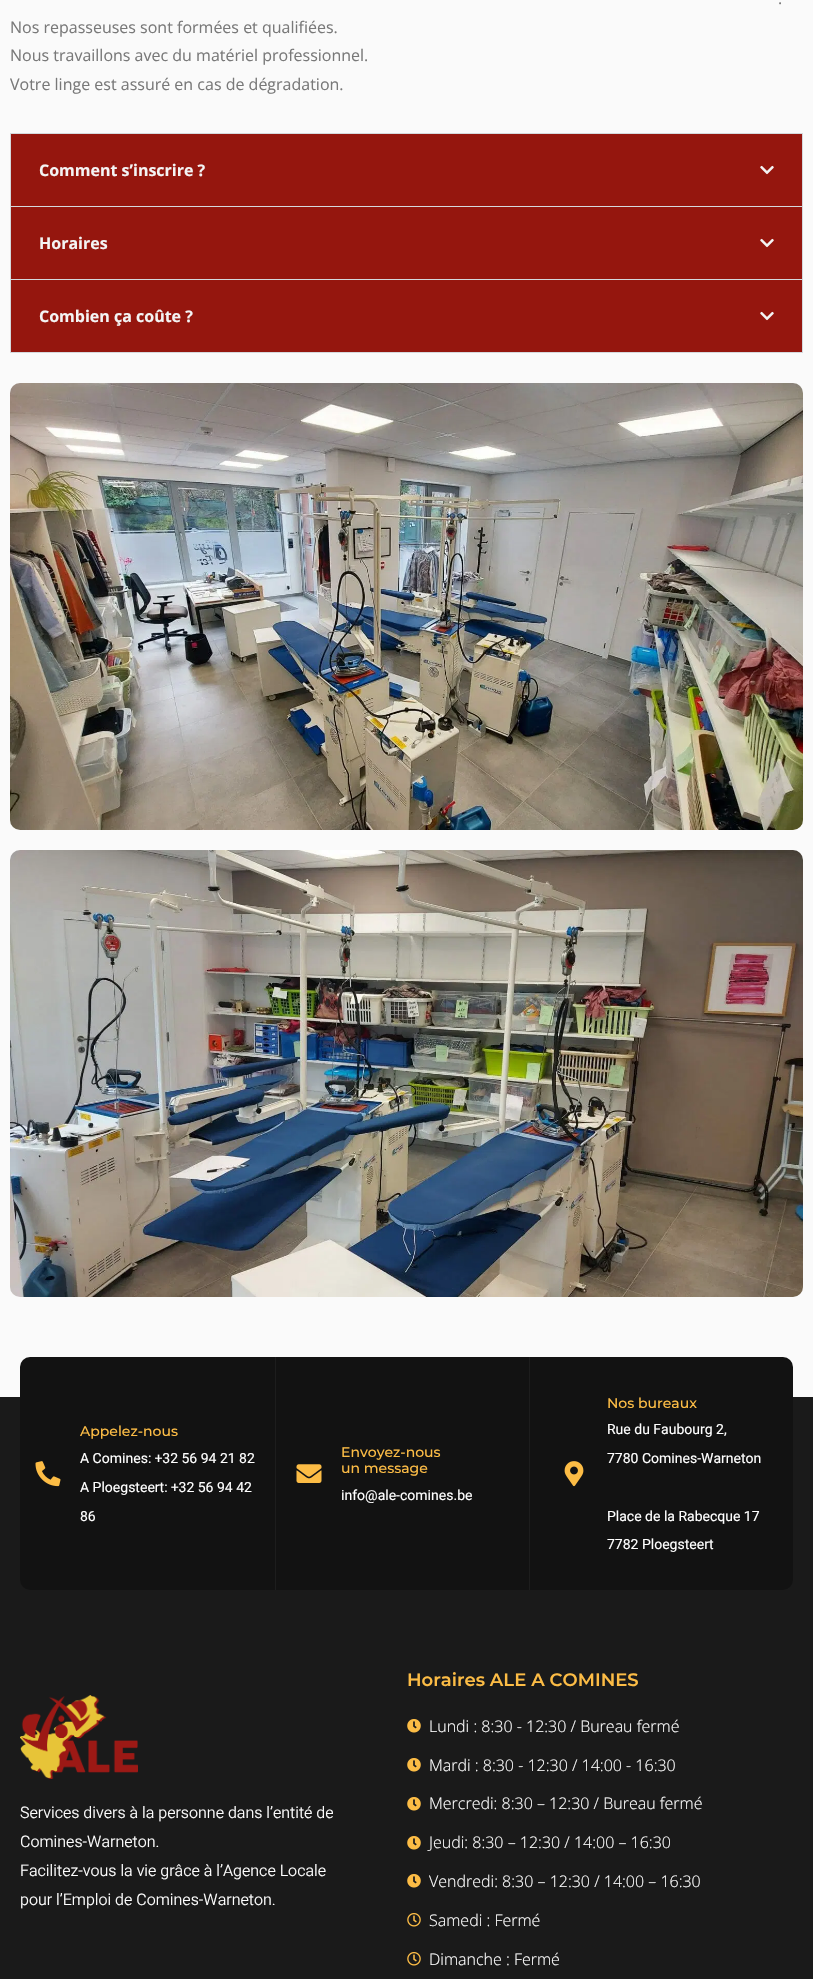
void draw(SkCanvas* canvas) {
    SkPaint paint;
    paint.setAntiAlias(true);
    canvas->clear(0xFFFAFAFA);
    SkFont font1(fontMgr->matchFamilyStyle("Open Sans", SkFontStyle::Normal()), 16);
    font1.setSubpixel(true);
    paint.setColor(0xFF797979);
    canvas->drawString(".", 778, 4, font1, paint);
    canvas->drawString("Nos repasseuses sont formées et qualifiées.", 10, 33, font1, paint);
    canvas->drawString("Nous travaillons avec du matériel professionnel.", 10, 61, font1, paint);
    canvas->drawString("Votre linge est assuré en cas de dégradation.", 10, 90, font1, paint);
    paint.setStyle(SkPaint::kStroke_Style);
    paint.setStrokeWidth(1);
    paint.setColor(0xFFD5D8DC);
    canvas->drawRect(SkRect::MakeXYWH(10.5f, 133.5f, 792, 73), paint);
    paint.setStyle(SkPaint::kFill_Style);
    paint.setColor(0xFF95160E);
    canvas->drawRect(SkRect::MakeXYWH(11, 134, 791, 72), paint);
    SkFont font2(fontMgr->matchFamilyStyle("Open Sans", SkFontStyle::Bold()), 16);
    font2.setSubpixel(true);
    paint.setColor(0xFFF4F4F4);
    canvas->drawString("Comment s’inscrire ?", 39, 176, font2, paint);
    canvas->drawImageRect(SkImages::DeferredFromEncodedData(SkData::MakeFromFileName("img1.png")), SkRect::MakeXYWH(760, 165, 14, 10), SkSamplingOptions());
    paint.setColor(0xFFD5D8DC);
    canvas->drawRect(SkRect::MakeXYWH(802, 207, 1, 146), paint);
    canvas->drawRect(SkRect::MakeXYWH(10, 279, 793, 1), paint);
    canvas->drawRect(SkRect::MakeXYWH(10, 207, 1, 73), paint);
    paint.setColor(0xFF95160E);
    canvas->drawRect(SkRect::MakeXYWH(11, 207, 791, 72), paint);
    paint.setColor(0xFFF4F4F4);
    canvas->drawString("Horaires", 39, 249, font2, paint);
    canvas->drawImageRect(SkImages::DeferredFromEncodedData(SkData::MakeFromFileName("img1.png")), SkRect::MakeXYWH(760, 238, 14, 10), SkSamplingOptions());
    paint.setColor(0xFFD5D8DC);
    canvas->drawRect(SkRect::MakeXYWH(10, 352, 793, 1), paint);
    canvas->drawRect(SkRect::MakeXYWH(10, 280, 1, 73), paint);
    paint.setColor(0xFF95160E);
    canvas->drawRect(SkRect::MakeXYWH(11, 280, 791, 72), paint);
    paint.setColor(0xFFF4F4F4);
    canvas->drawString("Combien ça coûte ?", 39, 322, font2, paint);
    canvas->drawImageRect(SkImages::DeferredFromEncodedData(SkData::MakeFromFileName("img1.png")), SkRect::MakeXYWH(760, 311, 14, 10), SkSamplingOptions());
    canvas->drawImageRect(SkImages::DeferredFromEncodedData(SkData::MakeFromFileName("img2.png")), SkRect::MakeXYWH(10, 383, 793, 447), SkSamplingOptions());
    canvas->drawImageRect(SkImages::DeferredFromEncodedData(SkData::MakeFromFileName("img3.png")), SkRect::MakeXYWH(10, 850, 793, 447), SkSamplingOptions());
    paint.setColor(0xFF1A1A1A);
    canvas->drawRect(SkRect::MakeXYWH(0, 1397, 813, 582), paint);
    paint.setColor(0xFF121212);
    canvas->drawRoundRect(SkRect::MakeXYWH(20, 1357, 773, 233), 10, 10, paint);
    canvas->drawImageRect(SkImages::DeferredFromEncodedData(SkData::MakeFromFileName("img4.png")), SkRect::MakeXYWH(35, 1461, 26, 26), SkSamplingOptions());
    SkFont font3(fontMgr->matchFamilyStyle("Montserrat", SkFontStyle(100, SkFontStyle::kNormal_Width, SkFontStyle::kUpright_Slant)), 14);
    font3.setSubpixel(true);
    paint.setColor(0xFFFCBC45);
    canvas->drawString("Appelez-nous", 80, 1436, font3, paint);
    SkFont font4(fontMgr->matchFamilyStyle("Heebo", SkFontStyle::Normal()), 14);
    font4.setSubpixel(true);
    paint.setColor(0xFFFFFFFF);
    canvas->drawString("A Comines: +32 56 94 21 82", 80, 1463, font4, paint);
    canvas->drawString("A Ploegsteert: +32 56 94 42", 80, 1492, font4, paint);
    canvas->drawString("86", 80, 1521, font4, paint);
    paint.setColor(0xFF1D1D1D);
    canvas->drawRect(SkRect::MakeXYWH(529, 1357, 1, 233), paint);
    canvas->drawRect(SkRect::MakeXYWH(275, 1357, 1, 233), paint);
    canvas->drawImageRect(SkImages::DeferredFromEncodedData(SkData::MakeFromFileName("img5.png")), SkRect::MakeXYWH(296, 1464, 26, 19), SkSamplingOptions());
    paint.setColor(0xFFFCBC45);
    canvas->drawString("Envoyez-nous", 341, 1457, font3, paint);
    canvas->drawString("un message", 341, 1473, font3, paint);
    paint.setColor(0xFFFFFFFF);
    canvas->drawString("info@ale-comines.be", 341, 1500, font4, paint);
    canvas->drawImageRect(SkImages::DeferredFromEncodedData(SkData::MakeFromFileName("img6.png")), SkRect::MakeXYWH(564, 1461, 20, 26), SkSamplingOptions());
    paint.setColor(0xFFFCBC45);
    canvas->drawString("Nos bureaux", 607, 1408, font3, paint);
    paint.setColor(0xFFFFFFFF);
    canvas->drawString("Rue du Faubourg 2,", 607, 1434, font4, paint);
    canvas->drawString("7780 Comines-Warneton", 607, 1463, font4, paint);
    canvas->drawString("Place de la Rabecque 17", 607, 1521, font4, paint);
    canvas->drawString("7782 Ploegsteert", 607, 1549, font4, paint);
    canvas->drawImageRect(SkImages::DeferredFromEncodedData(SkData::MakeFromFileName("img7.png")), SkRect::MakeXYWH(20, 1695, 118, 84), SkSamplingOptions());
    SkFont font5(fontMgr->matchFamilyStyle("Heebo", SkFontStyle(300, SkFontStyle::kNormal_Width, SkFontStyle::kUpright_Slant)), 16);
    font5.setSubpixel(true);
    canvas->drawString("Services divers à la personne dans l’entité de", 20, 1818, font5, paint);
    canvas->drawString("Comines-Warneton.", 20, 1847, font5, paint);
    canvas->drawString("Facilitez-vous la vie grâce à l’Agence Locale", 20, 1876, font5, paint);
    canvas->drawString("pour l’Emploi de Comines-Warneton.", 20, 1905, font5, paint);
    SkFont font6(fontMgr->matchFamilyStyle("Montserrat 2", SkFontStyle(100, SkFontStyle::kNormal_Width, SkFontStyle::kUpright_Slant)), 18);
    font6.setSubpixel(true);
    paint.setColor(0xFFFCBC45);
    canvas->drawString("Horaires ALE A COMINES", 407, 1686, font6, paint);
    canvas->drawImageRect(SkImages::DeferredFromEncodedData(SkData::MakeFromFileName("img8.png")), SkRect::MakeXYWH(407, 1719, 14, 14), SkSamplingOptions());
    SkFont font7(fontMgr->matchFamilyStyle("Open Sans", SkFontStyle(300, SkFontStyle::kNormal_Width, SkFontStyle::kUpright_Slant)), 16);
    font7.setSubpixel(true);
    paint.setColor(0xFFFFFFFF);
    canvas->drawString("Lundi : 8:30 - 12:30 / Bureau fermé", 429, 1732, font7, paint);
    canvas->drawImageRect(SkImages::DeferredFromEncodedData(SkData::MakeFromFileName("img8.png")), SkRect::MakeXYWH(407, 1758, 14, 14), SkSamplingOptions());
    canvas->drawString("Mardi : 8:30 - 12:30 / 14:00 - 16:30", 429, 1771, font7, paint);
    canvas->drawImageRect(SkImages::DeferredFromEncodedData(SkData::MakeFromFileName("img8.png")), SkRect::MakeXYWH(407, 1797, 14, 14), SkSamplingOptions());
    canvas->drawString("Mercredi: 8:30 – 12:30 / Bureau fermé", 429, 1809, font7, paint);
    canvas->drawImageRect(SkImages::DeferredFromEncodedData(SkData::MakeFromFileName("img8.png")), SkRect::MakeXYWH(407, 1836, 14, 14), SkSamplingOptions());
    canvas->drawString("Jeudi: 8:30 – 12:30 / 14:00 – 16:30", 429, 1848, font7, paint);
    canvas->drawImageRect(SkImages::DeferredFromEncodedData(SkData::MakeFromFileName("img8.png")), SkRect::MakeXYWH(407, 1874, 14, 14), SkSamplingOptions());
    canvas->drawString("Vendredi: 8:30 – 12:30 / 14:00 – 16:30", 429, 1887, font7, paint);
    canvas->drawImageRect(SkImages::DeferredFromEncodedData(SkData::MakeFromFileName("img9.png")), SkRect::MakeXYWH(407, 1913, 14, 14), SkSamplingOptions());
    canvas->drawString("Samedi : Fermé", 429, 1926, font7, paint);
    canvas->drawImageRect(SkImages::DeferredFromEncodedData(SkData::MakeFromFileName("img9.png")), SkRect::MakeXYWH(407, 1952, 14, 14), SkSamplingOptions());
    canvas->drawString("Dimanche : Fermé", 429, 1965, font7, paint);
}
